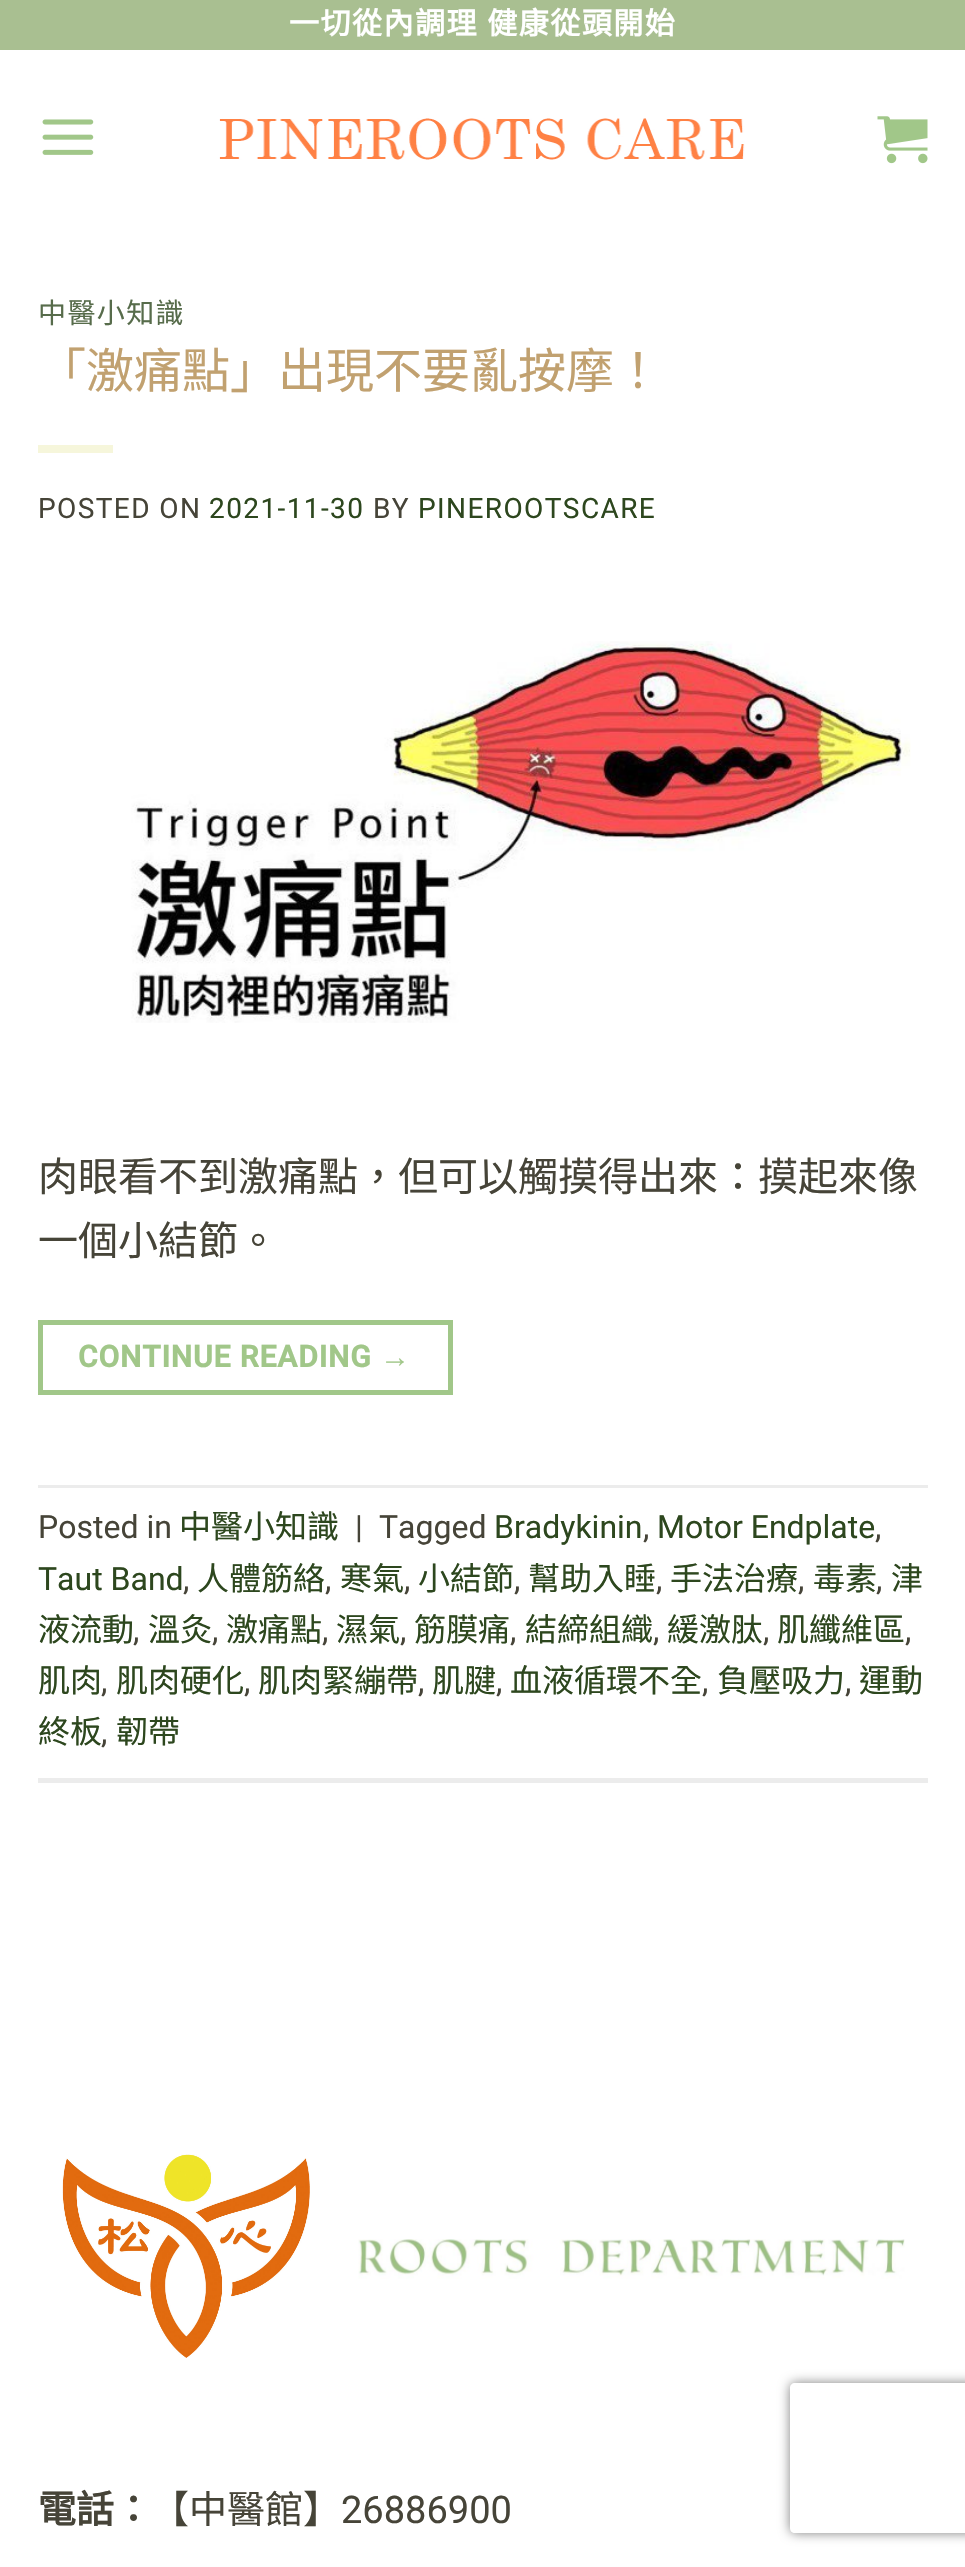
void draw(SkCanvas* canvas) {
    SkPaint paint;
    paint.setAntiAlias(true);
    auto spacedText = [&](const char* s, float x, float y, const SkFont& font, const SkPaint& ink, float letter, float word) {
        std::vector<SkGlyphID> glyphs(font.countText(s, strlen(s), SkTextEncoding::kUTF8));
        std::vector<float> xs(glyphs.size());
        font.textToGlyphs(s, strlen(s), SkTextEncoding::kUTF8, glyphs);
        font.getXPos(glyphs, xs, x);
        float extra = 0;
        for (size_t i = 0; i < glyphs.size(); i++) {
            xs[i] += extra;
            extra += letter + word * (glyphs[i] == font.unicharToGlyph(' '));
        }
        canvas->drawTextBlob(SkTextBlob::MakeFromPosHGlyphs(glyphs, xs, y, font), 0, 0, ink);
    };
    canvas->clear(0xFFFFFFFF);
    paint.setColor(0xFFA9BF91);
    canvas->drawRect(SkRect::MakeXYWH(0, 0, 965, 50), paint);
    SkFont font1(fontMgr->matchFamilyStyle("Noto Sans CJK HK", SkFontStyle::Bold()), 30);
    font1.setSubpixel(true);
    paint.setColor(0xFFFFFFFF);
    spacedText("一切從內調理 健康從頭開始", 289, 34, font1, paint, 1.5f, 1);
    canvas->drawImageRect(SkImages::DeferredFromEncodedData(SkData::MakeFromFileName("img1.png")), SkRect::MakeXYWH(42, 119, 52, 36), SkSamplingOptions());
    canvas->drawImageRect(SkImages::DeferredFromEncodedData(SkData::MakeFromFileName("img2.png")), SkRect::MakeXYWH(219, 118, 526, 42), SkSamplingOptions());
    canvas->drawImageRect(SkImages::DeferredFromEncodedData(SkData::MakeFromFileName("img3.png")), SkRect::MakeXYWH(877, 116, 51, 48), SkSamplingOptions());
    SkFont font2(fontMgr->matchFamilyStyle("Noto Sans CJK HK", SkFontStyle::Normal()), 28);
    font2.setSubpixel(true);
    paint.setColor(0xFF576C4B);
    spacedText("中醫小知識", 38, 323, font2, paint, 1.4f, 0);
    SkFont font3(fontMgr->matchFamilyStyle("Noto Sans CJK HK", SkFontStyle::Normal()), 48);
    font3.setSubpixel(true);
    paint.setColor(0xFFC1A170);
    canvas->drawString("「激痛點」出現不要亂按摩！", 38, 388, font3, paint);
    paint.setColor(0xFFF6F6DB);
    canvas->drawRect(SkRect::MakeXYWH(38, 445, 75, 8), paint);
    SkFont font4(fontMgr->matchFamilyStyle("Roboto", SkFontStyle::Normal()), 28);
    font4.setSubpixel(true);
    paint.setColor(0xFF464438);
    spacedText("POSTED ON", 38, 518, font4, paint, 1.4f, 0);
    paint.setColor(0xFF2D471E);
    spacedText("2021-11-30", 209, 518, font4, paint, 1.4f, 0);
    paint.setColor(0xFF464438);
    spacedText("BY", 373, 518, font4, paint, 1.4f, 0);
    paint.setColor(0xFF2D471E);
    spacedText("PINEROOTSCARE", 418, 518, font4, paint, 1.4f, 0);
    canvas->drawImageRect(SkImages::DeferredFromEncodedData(SkData::MakeFromFileName("img4.png")), SkRect::MakeXYWH(131, 641, 780, 382), SkSamplingOptions());
    SkFont font5(fontMgr->matchFamilyStyle("Noto Sans CJK HK", SkFontStyle::Normal()), 40);
    font5.setSubpixel(true);
    paint.setColor(0xFF464438);
    canvas->drawString("肉眼看不到激痛點，但可以觸摸得出來：摸起來像", 38, 1191, font5, paint);
    canvas->drawString("一個小結節。", 38, 1255, font5, paint);
    paint.setStyle(SkPaint::kStroke_Style);
    paint.setStrokeWidth(5);
    paint.setColor(0xFFA1C789);
    canvas->drawRect(SkRect::MakeXYWH(40.5f, 1322.5f, 410, 70), paint);
    SkFont font6(fontMgr->matchFamilyStyle("Roboto", SkFontStyle::Bold()), 30);
    font6.setSubpixel(true);
    paint.setStyle(SkPaint::kFill_Style);
    spacedText("CONTINUE READING", 78, 1367, font6, paint, 0.9f, 0);
    SkFont font7(fontMgr->matchFamilyStyle("Liberation Sans", SkFontStyle::Bold()), 30);
    font7.setSubpixel(true);
    spacedText("→", 380, 1367, font7, paint, 0.9f, 0);
    paint.setColor(0xFFECECEC);
    canvas->drawRect(SkRect::MakeXYWH(38, 1485, 890, 3), paint);
    canvas->drawRect(SkRect::MakeXYWH(38, 1778, 890, 5), paint);
    SkFont font8(fontMgr->matchFamilyStyle("Roboto", SkFontStyle::Normal()), 32);
    font8.setSubpixel(true);
    paint.setColor(0xFF464438);
    canvas->drawString("Posted in", 38, 1538, font8, paint);
    SkFont font9(fontMgr->matchFamilyStyle("Noto Sans CJK HK", SkFontStyle::Normal()), 32);
    font9.setSubpixel(true);
    paint.setColor(0xFF2D471E);
    canvas->drawString("中醫小知識", 179, 1538, font9, paint);
    paint.setColor(0xFF464438);
    canvas->drawString("|", 355, 1538, font8, paint);
    canvas->drawString("Tagged", 379, 1538, font8, paint);
    paint.setColor(0xFF2D471E);
    canvas->drawString("Bradykinin", 494, 1538, font8, paint);
    paint.setColor(0xFF464438);
    canvas->drawString(",", 643, 1538, font8, paint);
    paint.setColor(0xFF2D471E);
    canvas->drawString("Motor Endplate", 657, 1538, font8, paint);
    paint.setColor(0xFF464438);
    canvas->drawString(",", 875, 1538, font8, paint);
    paint.setColor(0xFF2D471E);
    canvas->drawString("Taut Band", 38, 1590, font8, paint);
    paint.setColor(0xFF464438);
    canvas->drawString(",", 183, 1590, font8, paint);
    paint.setColor(0xFF2D471E);
    canvas->drawString("人體筋絡", 197, 1590, font9, paint);
    paint.setColor(0xFF464438);
    canvas->drawString(",", 325, 1590, font8, paint);
    paint.setColor(0xFF2D471E);
    canvas->drawString("寒氣", 340, 1590, font9, paint);
    paint.setColor(0xFF464438);
    canvas->drawString(",", 404, 1590, font8, paint);
    paint.setColor(0xFF2D471E);
    canvas->drawString("小結節", 418, 1590, font9, paint);
    paint.setColor(0xFF464438);
    canvas->drawString(",", 514, 1590, font8, paint);
    paint.setColor(0xFF2D471E);
    canvas->drawString("幫助入睡", 528, 1590, font9, paint);
    paint.setColor(0xFF464438);
    canvas->drawString(",", 656, 1590, font8, paint);
    paint.setColor(0xFF2D471E);
    canvas->drawString("手法治療", 670, 1590, font9, paint);
    paint.setColor(0xFF464438);
    canvas->drawString(",", 798, 1590, font8, paint);
    paint.setColor(0xFF2D471E);
    canvas->drawString("毒素", 813, 1590, font9, paint);
    paint.setColor(0xFF464438);
    canvas->drawString(",", 876, 1590, font8, paint);
    paint.setColor(0xFF2D471E);
    canvas->drawString("津", 891, 1590, font9, paint);
    canvas->drawString("液流動", 38, 1641, font9, paint);
    paint.setColor(0xFF464438);
    canvas->drawString(",", 133, 1641, font8, paint);
    paint.setColor(0xFF2D471E);
    canvas->drawString("溫灸", 148, 1641, font9, paint);
    paint.setColor(0xFF464438);
    canvas->drawString(",", 212, 1641, font8, paint);
    paint.setColor(0xFF2D471E);
    canvas->drawString("激痛點", 226, 1641, font9, paint);
    paint.setColor(0xFF464438);
    canvas->drawString(",", 322, 1641, font8, paint);
    paint.setColor(0xFF2D471E);
    canvas->drawString("濕氣", 336, 1641, font9, paint);
    paint.setColor(0xFF464438);
    canvas->drawString(",", 400, 1641, font8, paint);
    paint.setColor(0xFF2D471E);
    canvas->drawString("筋膜痛", 414, 1641, font9, paint);
    paint.setColor(0xFF464438);
    canvas->drawString(",", 510, 1641, font8, paint);
    paint.setColor(0xFF2D471E);
    canvas->drawString("結締組織", 525, 1641, font9, paint);
    paint.setColor(0xFF464438);
    canvas->drawString(",", 653, 1641, font8, paint);
    paint.setColor(0xFF2D471E);
    canvas->drawString("緩激肽", 667, 1641, font9, paint);
    paint.setColor(0xFF464438);
    canvas->drawString(",", 763, 1641, font8, paint);
    paint.setColor(0xFF2D471E);
    canvas->drawString("肌纖維區", 777, 1641, font9, paint);
    paint.setColor(0xFF464438);
    canvas->drawString(",", 905, 1641, font8, paint);
    paint.setColor(0xFF2D471E);
    canvas->drawString("肌肉", 38, 1692, font9, paint);
    paint.setColor(0xFF464438);
    canvas->drawString(",", 101, 1692, font8, paint);
    paint.setColor(0xFF2D471E);
    canvas->drawString("肌肉硬化", 116, 1692, font9, paint);
    paint.setColor(0xFF464438);
    canvas->drawString(",", 244, 1692, font8, paint);
    paint.setColor(0xFF2D471E);
    canvas->drawString("肌肉緊繃帶", 258, 1692, font9, paint);
    paint.setColor(0xFF464438);
    canvas->drawString(",", 418, 1692, font8, paint);
    paint.setColor(0xFF2D471E);
    canvas->drawString("肌腱", 432, 1692, font9, paint);
    paint.setColor(0xFF464438);
    canvas->drawString(",", 496, 1692, font8, paint);
    paint.setColor(0xFF2D471E);
    canvas->drawString("血液循環不全", 510, 1692, font9, paint);
    paint.setColor(0xFF464438);
    canvas->drawString(",", 702, 1692, font8, paint);
    paint.setColor(0xFF2D471E);
    canvas->drawString("負壓吸力", 717, 1692, font9, paint);
    paint.setColor(0xFF464438);
    canvas->drawString(",", 845, 1692, font8, paint);
    paint.setColor(0xFF2D471E);
    canvas->drawString("運動", 859, 1692, font9, paint);
    canvas->drawString("終板", 38, 1743, font9, paint);
    paint.setColor(0xFF464438);
    canvas->drawString(",", 101, 1743, font8, paint);
    paint.setColor(0xFF2D471E);
    canvas->drawString("韌帶", 116, 1743, font9, paint);
    canvas->drawImageRect(SkImages::DeferredFromEncodedData(SkData::MakeFromFileName("img5.png")), SkRect::MakeXYWH(62, 2154, 248, 204), SkSamplingOptions());
    canvas->drawImageRect(SkImages::DeferredFromEncodedData(SkData::MakeFromFileName("img6.png")), SkRect::MakeXYWH(358, 2239, 547, 40), SkSamplingOptions());
    SkFont font10(fontMgr->matchFamilyStyle("Noto Sans CJK HK", SkFontStyle::Bold()), 38);
    font10.setSubpixel(true);
    paint.setColor(0xFF464438);
    canvas->drawString("電話：", 38, 2523, font10, paint);
    SkFont font11(fontMgr->matchFamilyStyle("Noto Sans CJK HK", SkFontStyle::Normal()), 38);
    font11.setSubpixel(true);
    canvas->drawString("【中醫館】", 151, 2523, font11, paint);
    SkFont font12(fontMgr->matchFamilyStyle("Roboto", SkFontStyle::Normal()), 38);
    font12.setSubpixel(true);
    canvas->drawString("26886900", 341, 2523, font12, paint);
    canvas->save();
    canvas->clipPath(SkPathBuilder(SkPathFillType::kEvenOdd).moveTo(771, 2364).lineTo(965, 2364).lineTo(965, 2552).lineTo(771, 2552).close().moveTo(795, 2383).lineTo(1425, 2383).cubicTo(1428, 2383, 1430, 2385, 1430, 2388).lineTo(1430, 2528).cubicTo(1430, 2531, 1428, 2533, 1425, 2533).lineTo(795, 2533).cubicTo(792, 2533, 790, 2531, 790, 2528).lineTo(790, 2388).cubicTo(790, 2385, 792, 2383, 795, 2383).close().detach(), true);
    paint.setColor(0xFF808080);
    paint.setMaskFilter(SkMaskFilter::MakeBlur(kNormal_SkBlurStyle, 6));
    canvas->drawRoundRect(SkRect::MakeXYWH(790, 2383, 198, 150), 5, 5, paint);
    paint.setMaskFilter(nullptr);
    canvas->restore();
}
